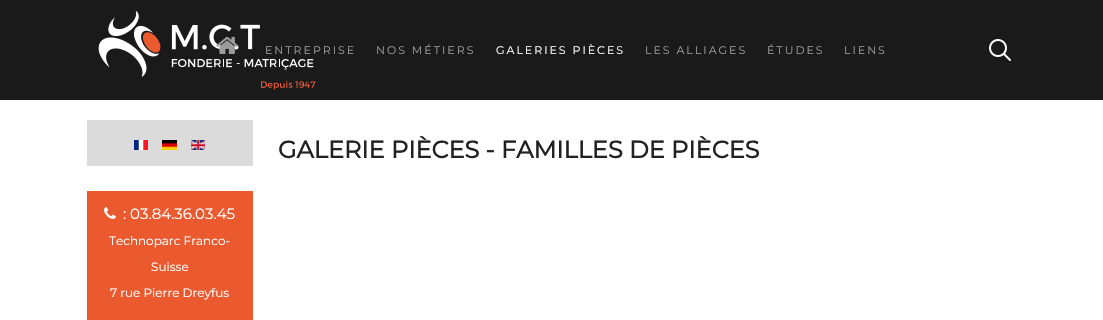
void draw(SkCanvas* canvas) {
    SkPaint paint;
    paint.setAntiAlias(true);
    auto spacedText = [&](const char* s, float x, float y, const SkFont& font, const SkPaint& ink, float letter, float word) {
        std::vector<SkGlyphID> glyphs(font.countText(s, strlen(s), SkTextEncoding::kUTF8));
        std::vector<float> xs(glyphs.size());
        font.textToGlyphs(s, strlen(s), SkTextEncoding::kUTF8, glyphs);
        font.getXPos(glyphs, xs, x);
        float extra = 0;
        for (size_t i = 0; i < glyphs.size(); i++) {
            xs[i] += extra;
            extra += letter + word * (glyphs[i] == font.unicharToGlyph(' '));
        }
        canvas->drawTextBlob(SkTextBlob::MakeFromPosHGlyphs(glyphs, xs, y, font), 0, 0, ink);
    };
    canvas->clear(0xFFFFFFFF);
    paint.setColor(0xFF1A1A1A);
    canvas->drawRect(SkRect::MakeXYWH(0, 0, 1103, 100), paint);
    canvas->drawImageRect(SkImages::DeferredFromEncodedData(SkData::MakeFromFileName("img1.png")), SkRect::MakeXYWH(98, 11, 218, 79), SkSamplingOptions());
    canvas->drawImageRect(SkImages::DeferredFromEncodedData(SkData::MakeFromFileName("img2.png")), SkRect::MakeXYWH(216, 36, 22, 18), SkSamplingOptions());
    SkFont font1(fontMgr->matchFamilyStyle("Montserrat", SkFontStyle(100, SkFontStyle::kNormal_Width, SkFontStyle::kUpright_Slant)), 11);
    font1.setSubpixel(true);
    paint.setColor(0xFF9C9C9C);
    spacedText("ENTREPRISE", 265, 54, font1, paint, 2, 0);
    spacedText("NOS MÉTIERS", 376, 54, font1, paint, 2, 0);
    paint.setColor(0xFFFFFFFF);
    spacedText("GALERIES PIÈCES", 496, 54, font1, paint, 2, 0);
    paint.setColor(0xFF9C9C9C);
    spacedText("LES ALLIAGES", 645, 54, font1, paint, 2, 0);
    spacedText("ÉTUDES", 767, 54, font1, paint, 2, 0);
    spacedText("LIENS", 844, 54, font1, paint, 2, 0);
    canvas->drawImageRect(SkImages::DeferredFromEncodedData(SkData::MakeFromFileName("img3.png")), SkRect::MakeXYWH(989, 39, 22, 22), SkSamplingOptions());
    SkFont font2(fontMgr->matchFamilyStyle("Montserrat", SkFontStyle::Bold()), 24);
    font2.setSubpixel(true);
    paint.setColor(0xFF222222);
    canvas->drawString("GALERIE PIÈCES - FAMILLES DE PIÈCES", 278, 158, font2, paint);
    paint.setColor(0xFFDBDBDB);
    canvas->drawRect(SkRect::MakeXYWH(87, 120, 166, 46), paint);
    canvas->drawImageRect(SkImages::DeferredFromEncodedData(SkData::MakeFromFileName("img4.png")), SkRect::MakeXYWH(134, 140, 14, 10), SkSamplingOptions());
    canvas->drawImageRect(SkImages::DeferredFromEncodedData(SkData::MakeFromFileName("img5.png")), SkRect::MakeXYWH(162, 140, 15, 10), SkSamplingOptions());
    canvas->drawImageRect(SkImages::DeferredFromEncodedData(SkData::MakeFromFileName("img6.png")), SkRect::MakeXYWH(191, 140, 14, 10), SkSamplingOptions());
    paint.setColor(0xFFEB5A2F);
    canvas->drawRect(SkRect::MakeXYWH(87, 191, 166, 129), paint);
    canvas->drawImageRect(SkImages::DeferredFromEncodedData(SkData::MakeFromFileName("img7.png")), SkRect::MakeXYWH(104, 207, 12, 12), SkSamplingOptions());
    SkFont font3(fontMgr->matchFamilyStyle("Montserrat", SkFontStyle(100, SkFontStyle::kNormal_Width, SkFontStyle::kUpright_Slant)), 15);
    font3.setSubpixel(true);
    paint.setColor(0xFFFFFFFF);
    canvas->drawString(": 03.84.36.03.45", 123, 219, font3, paint);
    SkFont font4(fontMgr->matchFamilyStyle("Montserrat", SkFontStyle(100, SkFontStyle::kNormal_Width, SkFontStyle::kUpright_Slant)), 12);
    font4.setSubpixel(true);
    canvas->drawString("Technoparc Franco-", 109, 245, font4, paint);
    canvas->drawString("Suisse", 151, 271, font4, paint);
    canvas->drawString("7 rue Pierre Dreyfus", 110, 297, font4, paint);
}
